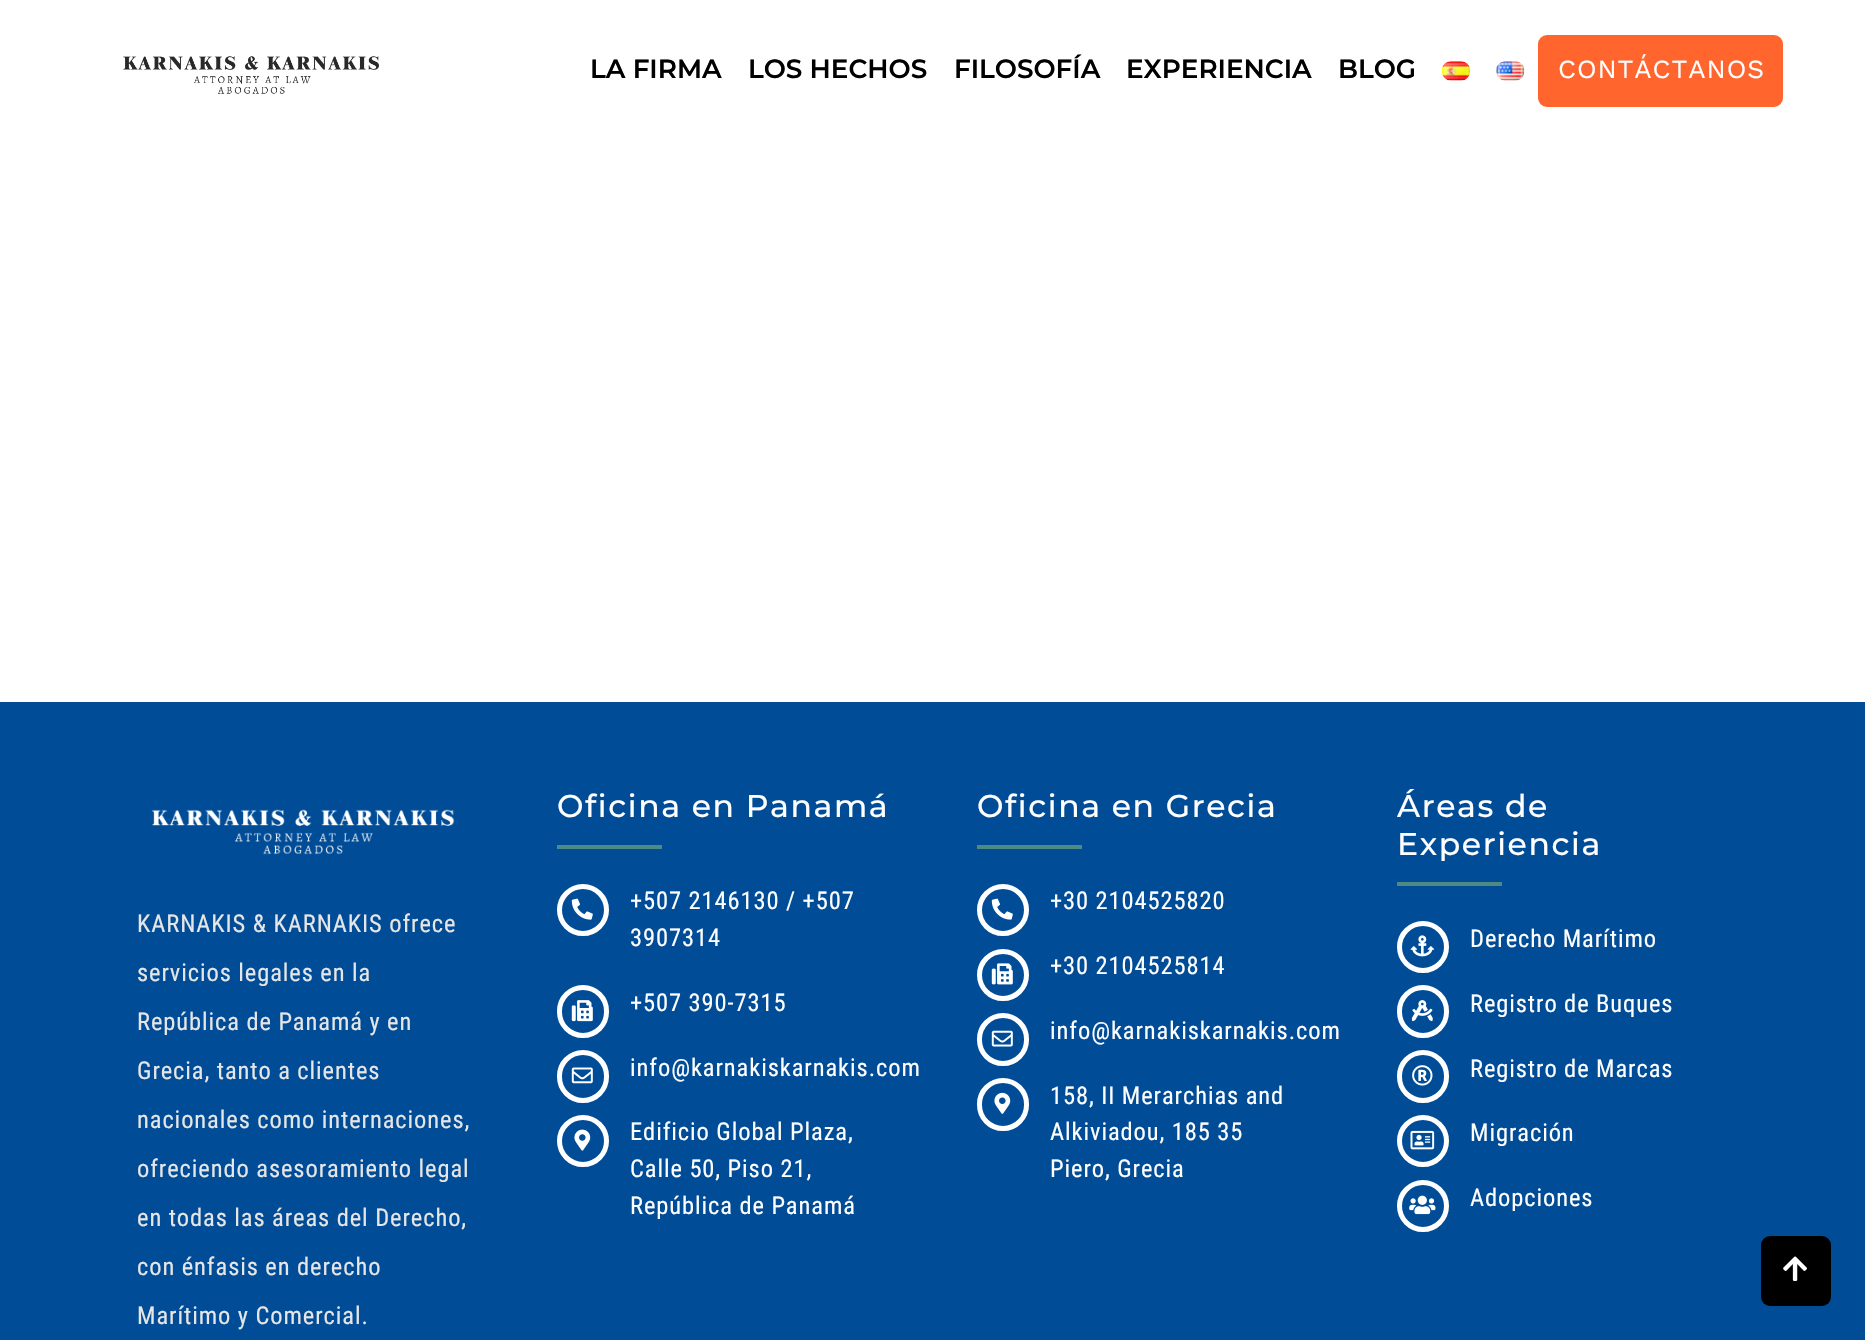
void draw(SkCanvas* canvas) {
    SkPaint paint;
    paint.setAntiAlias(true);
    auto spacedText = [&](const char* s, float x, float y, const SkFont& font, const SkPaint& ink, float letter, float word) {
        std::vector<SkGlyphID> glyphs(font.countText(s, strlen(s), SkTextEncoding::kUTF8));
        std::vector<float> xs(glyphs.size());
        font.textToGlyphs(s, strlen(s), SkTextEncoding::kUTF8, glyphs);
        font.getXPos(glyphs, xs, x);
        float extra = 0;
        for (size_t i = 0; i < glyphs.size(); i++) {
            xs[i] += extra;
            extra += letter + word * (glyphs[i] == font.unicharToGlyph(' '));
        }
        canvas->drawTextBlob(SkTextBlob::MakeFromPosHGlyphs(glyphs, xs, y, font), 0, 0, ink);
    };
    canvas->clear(0xFFFFFFFF);
    canvas->drawImageRect(SkImages::DeferredFromEncodedData(SkData::MakeFromFileName("img1.png")), SkRect::MakeXYWH(123, 56, 256, 38), SkSamplingOptions());
    SkFont font1(fontMgr->matchFamilyStyle("Montserrat", SkFontStyle(600, SkFontStyle::kNormal_Width, SkFontStyle::kUpright_Slant)), 26.25f);
    font1.setSubpixel(true);
    paint.setColor(0xFF000000);
    canvas->drawString("LA FIRMA", 590, 78, font1, paint);
    canvas->drawString("LOS HECHOS", 748, 78, font1, paint);
    canvas->drawString("FILOSOFÍA", 954, 78, font1, paint);
    canvas->drawString("EXPERIENCIA", 1126, 78, font1, paint);
    canvas->drawString("BLOG", 1338, 78, font1, paint);
    canvas->drawImageRect(SkImages::DeferredFromEncodedData(SkData::MakeFromFileName("img2.png")), SkRect::MakeXYWH(1442, 61, 28, 20), SkSamplingOptions());
    canvas->drawImageRect(SkImages::DeferredFromEncodedData(SkData::MakeFromFileName("img3.png")), SkRect::MakeXYWH(1496, 61, 29, 20), SkSamplingOptions());
    paint.setColor(0xFFFF652D);
    canvas->drawRoundRect(SkRect::MakeXYWH(1539, 36, 243, 70), 8, 8, paint);
    paint.setStyle(SkPaint::kStroke_Style);
    paint.setStrokeWidth(2);
    canvas->drawRoundRect(SkRect::MakeXYWH(1539, 36, 243, 70), 8, 8, paint);
    SkFont font2(fontMgr->matchFamilyStyle("Work Sans", SkFontStyle::Normal()), 26.25f);
    font2.setSubpixel(true);
    paint.setStyle(SkPaint::kFill_Style);
    paint.setColor(0xFFFFFFFF);
    spacedText("CONTÁCTANOS", 1558, 78, font2, paint, 0.9f, 0);
    paint.setColor(0xFF004C97);
    canvas->drawRect(SkRect::MakeXYWH(0, 702, 1865, 638), paint);
    canvas->drawImageRect(SkImages::DeferredFromEncodedData(SkData::MakeFromFileName("img4.png")), SkRect::MakeXYWH(151, 809, 304, 46), SkSamplingOptions());
    SkFont font3(fontMgr->matchFamilyStyle("Roboto Condensed", SkFontStyle::Normal()), 24.5f);
    font3.setSubpixel(true);
    paint.setColor(0xFFE6E6E6);
    spacedText("KARNAKIS & KARNAKIS ofrece", 137, 932, font3, paint, 0.9f, 0);
    spacedText("servicios legales en la", 137, 981, font3, paint, 0.9f, 0);
    spacedText("República de Panamá y en", 137, 1030, font3, paint, 0.9f, 0);
    spacedText("Grecia, tanto a clientes", 137, 1079, font3, paint, 0.9f, 0);
    spacedText("nacionales como internaciones,", 137, 1128, font3, paint, 0.9f, 0);
    spacedText("ofreciendo asesoramiento legal", 137, 1177, font3, paint, 0.9f, 0);
    spacedText("en todas las áreas del Derecho,", 137, 1226, font3, paint, 0.9f, 0);
    spacedText("con énfasis en derecho", 137, 1275, font3, paint, 0.9f, 0);
    spacedText("Marítimo y Comercial.", 137, 1324, font3, paint, 0.9f, 0);
    SkFont font4(fontMgr->matchFamilyStyle("Montserrat", SkFontStyle(500, SkFontStyle::kNormal_Width, SkFontStyle::kUpright_Slant)), 31.5f);
    font4.setSubpixel(true);
    paint.setColor(0xFFFFFFFF);
    spacedText("Oficina en Panamá", 557, 817, font4, paint, 1.6f, 0);
    paint.setColor(0xFF4E8A81);
    canvas->drawRect(SkRect::MakeXYWH(557, 845, 105, 4), paint);
    paint.setStyle(SkPaint::kStroke_Style);
    paint.setStrokeWidth(5);
    paint.setColor(0xFFFFFFFF);
    canvas->drawCircle(583, 910, 23.5f, paint);
    canvas->drawImageRect(SkImages::DeferredFromEncodedData(SkData::MakeFromFileName("img5.png")), SkRect::MakeXYWH(571, 898, 22, 22), SkSamplingOptions());
    paint.setStyle(SkPaint::kFill_Style);
    spacedText("+507 2146130 / +507", 630, 909, font3, paint, 0.9f, 0);
    spacedText("3907314", 630, 946, font3, paint, 0.9f, 0);
    paint.setStyle(SkPaint::kStroke_Style);
    canvas->drawRoundRect(SkRect::MakeXYWH(559.5f, 987.5f, 47, 48), 23.5f, 23.5f, paint);
    canvas->drawImageRect(SkImages::DeferredFromEncodedData(SkData::MakeFromFileName("img6.png")), SkRect::MakeXYWH(571, 1000, 22, 22), SkSamplingOptions());
    paint.setStyle(SkPaint::kFill_Style);
    spacedText("+507 390-7315", 630, 1011, font3, paint, 0.9f, 0);
    paint.setStyle(SkPaint::kStroke_Style);
    canvas->drawRoundRect(SkRect::MakeXYWH(559.5f, 1052.5f, 47, 48), 23.5f, 23.5f, paint);
    canvas->drawImageRect(SkImages::DeferredFromEncodedData(SkData::MakeFromFileName("img7.png")), SkRect::MakeXYWH(571, 1067, 22, 17), SkSamplingOptions());
    paint.setStyle(SkPaint::kFill_Style);
    spacedText("info@karnakiskarnakis.com", 630, 1076, font3, paint, 0.9f, 0);
    paint.setStyle(SkPaint::kStroke_Style);
    canvas->drawCircle(583, 1141, 23.5f, paint);
    canvas->drawImageRect(SkImages::DeferredFromEncodedData(SkData::MakeFromFileName("img8.png")), SkRect::MakeXYWH(574, 1129, 17, 22), SkSamplingOptions());
    paint.setStyle(SkPaint::kFill_Style);
    spacedText("Edificio Global Plaza,", 630, 1140, font3, paint, 0.9f, 0);
    spacedText("Calle 50, Piso 21,", 630, 1177, font3, paint, 0.9f, 0);
    spacedText("República de Panamá", 630, 1214, font3, paint, 0.9f, 0);
    spacedText("Oficina en Grecia", 977, 817, font4, paint, 1.6f, 0);
    paint.setColor(0xFF4E8A81);
    canvas->drawRect(SkRect::MakeXYWH(977, 845, 105, 4), paint);
    paint.setStyle(SkPaint::kStroke_Style);
    paint.setColor(0xFFFFFFFF);
    canvas->drawCircle(1003, 910, 23.5f, paint);
    canvas->drawImageRect(SkImages::DeferredFromEncodedData(SkData::MakeFromFileName("img5.png")), SkRect::MakeXYWH(991, 898, 22, 22), SkSamplingOptions());
    paint.setStyle(SkPaint::kFill_Style);
    spacedText("+30 2104525820", 1050, 909, font3, paint, 0.9f, 0);
    paint.setStyle(SkPaint::kStroke_Style);
    canvas->drawCircle(1003, 975, 23.5f, paint);
    canvas->drawImageRect(SkImages::DeferredFromEncodedData(SkData::MakeFromFileName("img9.png")), SkRect::MakeXYWH(991, 963, 22, 22), SkSamplingOptions());
    paint.setStyle(SkPaint::kFill_Style);
    spacedText("+30 2104525814", 1050, 974, font3, paint, 0.9f, 0);
    paint.setStyle(SkPaint::kStroke_Style);
    canvas->drawRoundRect(SkRect::MakeXYWH(979.5f, 1015.5f, 47, 48), 23.5f, 23.5f, paint);
    canvas->drawImageRect(SkImages::DeferredFromEncodedData(SkData::MakeFromFileName("img10.png")), SkRect::MakeXYWH(991, 1030, 22, 17), SkSamplingOptions());
    paint.setStyle(SkPaint::kFill_Style);
    spacedText("info@karnakiskarnakis.com", 1050, 1039, font3, paint, 0.9f, 0);
    paint.setStyle(SkPaint::kStroke_Style);
    canvas->drawRoundRect(SkRect::MakeXYWH(979.5f, 1080.5f, 47, 48), 23.5f, 23.5f, paint);
    canvas->drawImageRect(SkImages::DeferredFromEncodedData(SkData::MakeFromFileName("img11.png")), SkRect::MakeXYWH(994, 1092, 17, 22), SkSamplingOptions());
    paint.setStyle(SkPaint::kFill_Style);
    spacedText("158, II Merarchias and", 1050, 1104, font3, paint, 0.9f, 0);
    spacedText("Alkiviadou, 185 35", 1050, 1140, font3, paint, 0.9f, 0);
    spacedText("Piero, Grecia", 1050, 1177, font3, paint, 0.9f, 0);
    spacedText("Áreas de", 1397, 817, font4, paint, 1.6f, 0);
    spacedText("Experiencia", 1397, 855, font4, paint, 1.6f, 0);
    paint.setColor(0xFF4E8A81);
    canvas->drawRect(SkRect::MakeXYWH(1397, 882, 105, 4), paint);
    paint.setStyle(SkPaint::kStroke_Style);
    paint.setColor(0xFFFFFFFF);
    canvas->drawCircle(1423, 947, 23.5f, paint);
    canvas->drawImageRect(SkImages::DeferredFromEncodedData(SkData::MakeFromFileName("img12.png")), SkRect::MakeXYWH(1410, 935, 25, 22), SkSamplingOptions());
    paint.setStyle(SkPaint::kFill_Style);
    spacedText("Derecho Marítimo", 1470, 947, font3, paint, 0.9f, 0);
    paint.setStyle(SkPaint::kStroke_Style);
    canvas->drawRoundRect(SkRect::MakeXYWH(1399.5f, 987.5f, 47, 48), 23.5f, 23.5f, paint);
    canvas->drawImageRect(SkImages::DeferredFromEncodedData(SkData::MakeFromFileName("img13.png")), SkRect::MakeXYWH(1411, 1000, 22, 22), SkSamplingOptions());
    paint.setStyle(SkPaint::kFill_Style);
    spacedText("Registro de Buques", 1470, 1012, font3, paint, 0.9f, 0);
    paint.setStyle(SkPaint::kStroke_Style);
    canvas->drawRoundRect(SkRect::MakeXYWH(1399.5f, 1052.5f, 47, 48), 23.5f, 23.5f, paint);
    canvas->drawImageRect(SkImages::DeferredFromEncodedData(SkData::MakeFromFileName("img14.png")), SkRect::MakeXYWH(1412, 1065, 21, 21), SkSamplingOptions());
    paint.setStyle(SkPaint::kFill_Style);
    spacedText("Registro de Marcas", 1470, 1077, font3, paint, 0.9f, 0);
    paint.setStyle(SkPaint::kStroke_Style);
    canvas->drawCircle(1423, 1141, 23.5f, paint);
    canvas->drawImageRect(SkImages::DeferredFromEncodedData(SkData::MakeFromFileName("img15.png")), SkRect::MakeXYWH(1410, 1130, 25, 20), SkSamplingOptions());
    paint.setStyle(SkPaint::kFill_Style);
    spacedText("Migración", 1470, 1141, font3, paint, 0.9f, 0);
    paint.setStyle(SkPaint::kStroke_Style);
    canvas->drawCircle(1423, 1206, 23.5f, paint);
    canvas->drawImageRect(SkImages::DeferredFromEncodedData(SkData::MakeFromFileName("img16.png")), SkRect::MakeXYWH(1409, 1195, 27, 20), SkSamplingOptions());
    paint.setStyle(SkPaint::kFill_Style);
    spacedText("Adopciones", 1470, 1206, font3, paint, 0.9f, 0);
    paint.setColor(0xFF000000);
    canvas->drawRoundRect(SkRect::MakeXYWH(1761, 1236, 70, 70), 9, 9, paint);
    canvas->drawImageRect(SkImages::DeferredFromEncodedData(SkData::MakeFromFileName("img17.png")), SkRect::MakeXYWH(1783, 1256, 24, 25), SkSamplingOptions());
}
